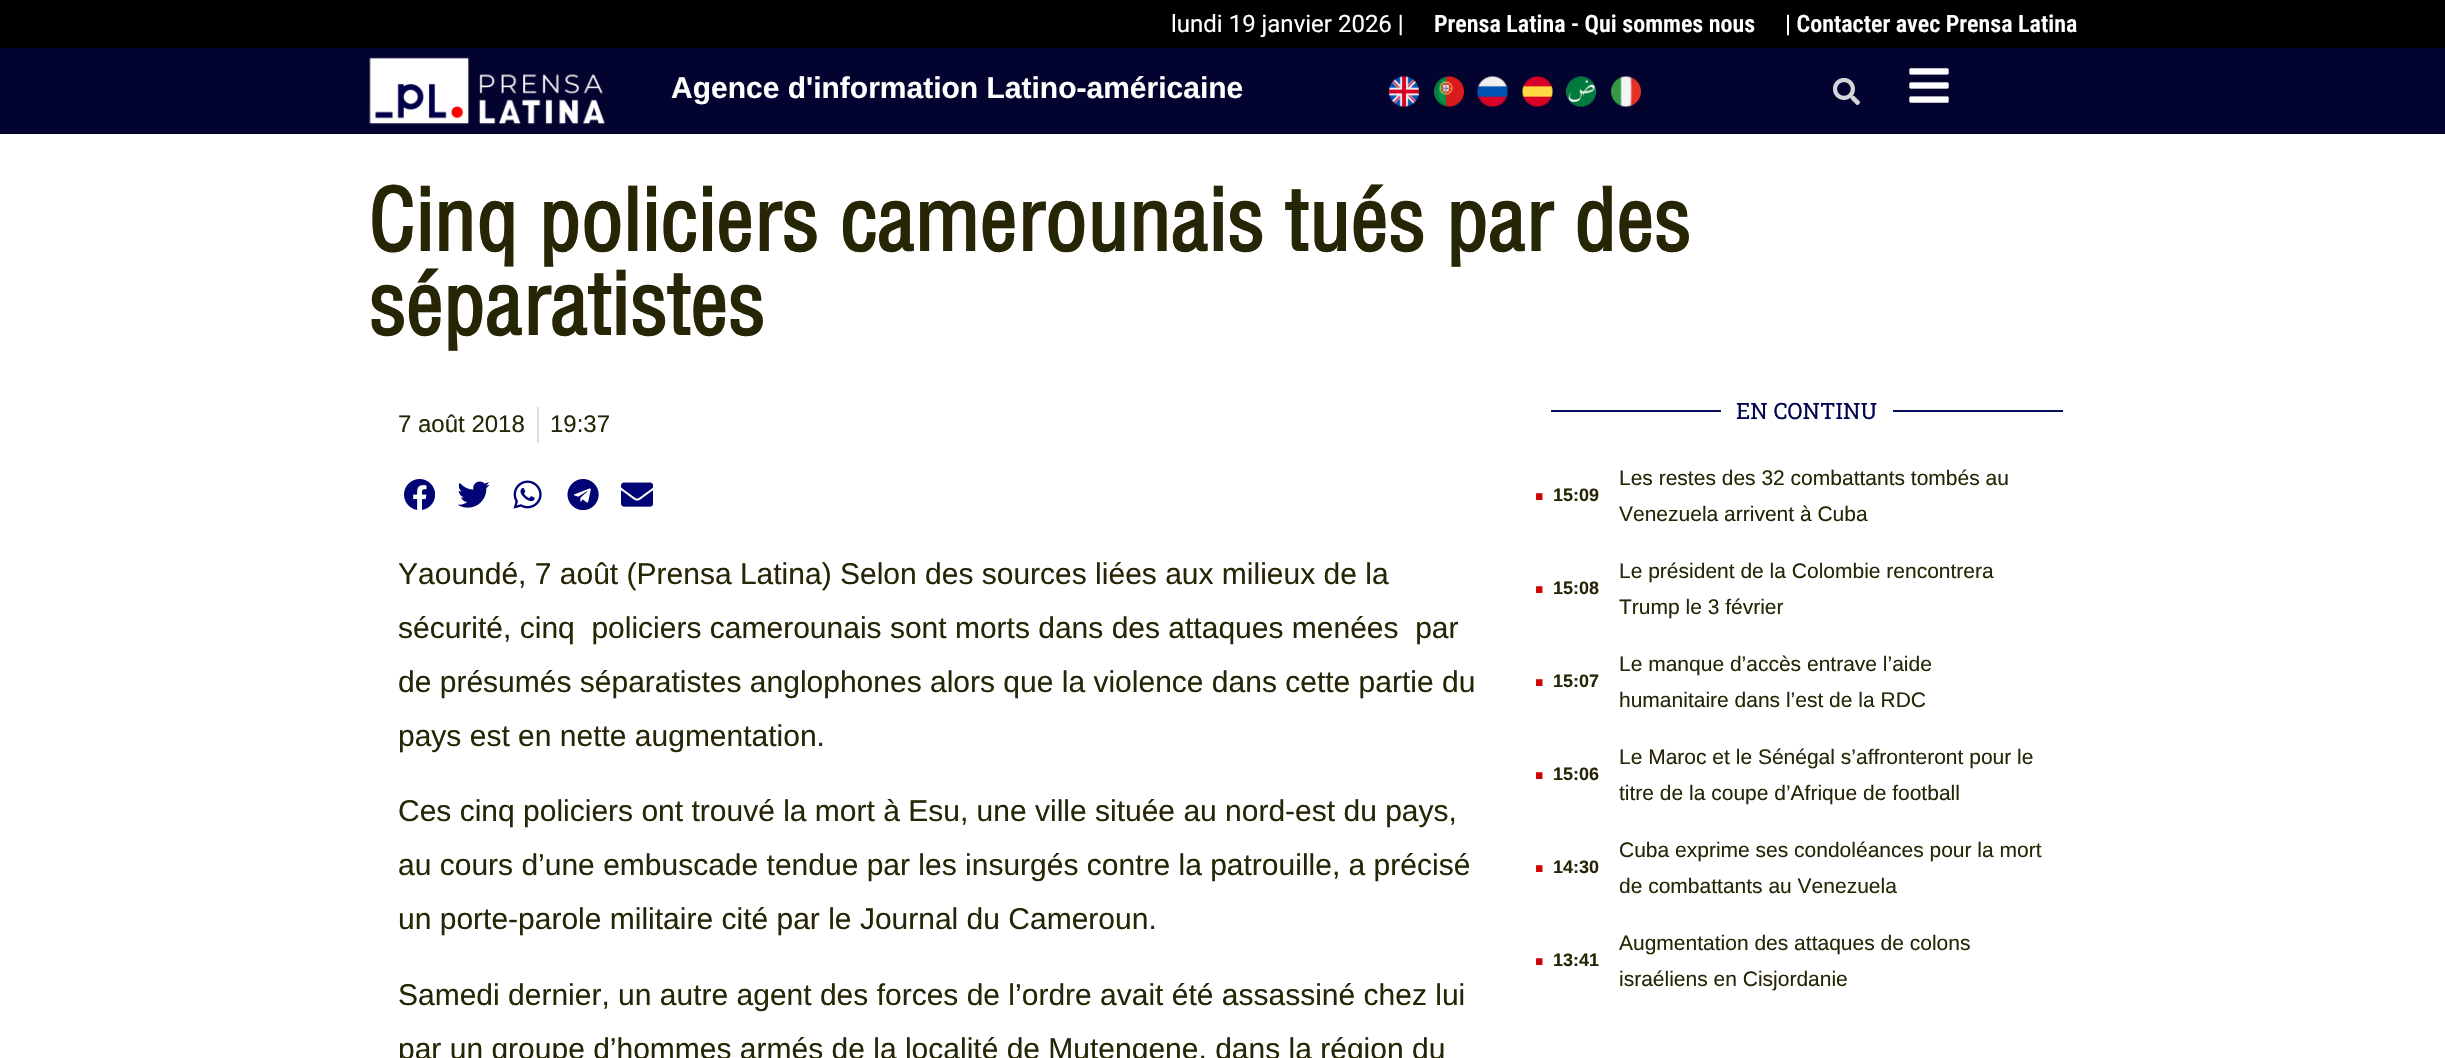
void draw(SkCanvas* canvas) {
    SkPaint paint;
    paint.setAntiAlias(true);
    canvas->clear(0xFFFFFFFF);
    paint.setColor(0xFF000000);
    canvas->drawRect(SkRect::MakeXYWH(0, 0, 2445, 48), paint);
    SkFont font1(fontMgr->matchFamilyStyle("Roboto", SkFontStyle::Normal()), 24);
    font1.setSubpixel(true);
    paint.setColor(0xFFFFFFFF);
    canvas->drawString("lundi 19 janvier 2026 |", 1171, 32, font1, paint);
    SkFont font2(fontMgr->matchFamilyStyle("Roboto Condensed", SkFontStyle(600, SkFontStyle::kNormal_Width, SkFontStyle::kUpright_Slant)), 24);
    font2.setSubpixel(true);
    canvas->drawString("Prensa Latina - Qui sommes nous", 1434, 32, font2, paint);
    canvas->drawString("| Contacter avec Prensa Latina", 1785, 32, font2, paint);
    paint.setColor(0xFF030330);
    canvas->drawRect(SkRect::MakeXYWH(0, 48, 2445, 86), paint);
    canvas->drawImageRect(SkImages::DeferredFromEncodedData(SkData::MakeFromFileName("img1.png")), SkRect::MakeXYWH(369, 57, 236, 68), SkSamplingOptions());
    SkFont font3(fontMgr->matchFamilyStyle("Liberation Sans", SkFontStyle::Bold()), 30);
    font3.setSubpixel(true);
    paint.setColor(0xFFFFFFFF);
    canvas->drawString("Agence d'information Latino-américaine", 671, 98, font3, paint);
    canvas->drawImageRect(SkImages::DeferredFromEncodedData(SkData::MakeFromFileName("img2.png")), SkRect::MakeXYWH(1389, 76, 30, 31), SkSamplingOptions());
    canvas->drawImageRect(SkImages::DeferredFromEncodedData(SkData::MakeFromFileName("img3.png")), SkRect::MakeXYWH(1434, 76, 30, 31), SkSamplingOptions());
    canvas->drawImageRect(SkImages::DeferredFromEncodedData(SkData::MakeFromFileName("img4.png")), SkRect::MakeXYWH(1477, 76, 31, 31), SkSamplingOptions());
    canvas->drawImageRect(SkImages::DeferredFromEncodedData(SkData::MakeFromFileName("img5.png")), SkRect::MakeXYWH(1522, 76, 31, 31), SkSamplingOptions());
    canvas->drawImageRect(SkImages::DeferredFromEncodedData(SkData::MakeFromFileName("img6.png")), SkRect::MakeXYWH(1566, 76, 30, 31), SkSamplingOptions());
    canvas->drawImageRect(SkImages::DeferredFromEncodedData(SkData::MakeFromFileName("img7.png")), SkRect::MakeXYWH(1611, 76, 30, 31), SkSamplingOptions());
    canvas->drawImageRect(SkImages::DeferredFromEncodedData(SkData::MakeFromFileName("img8.png")), SkRect::MakeXYWH(1833, 78, 27, 27), SkSamplingOptions());
    canvas->drawImageRect(SkImages::DeferredFromEncodedData(SkData::MakeFromFileName("img9.png")), SkRect::MakeXYWH(1909, 68, 40, 35), SkSamplingOptions());
    SkFont font4(fontMgr->matchFamilyStyle("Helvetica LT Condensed", SkFontStyle::Bold()), 84);
    font4.setSubpixel(true);
    paint.setColor(0xFF262606);
    canvas->drawString("Cinq policiers camerounais tués par des", 368, 251, font4, paint);
    canvas->drawString("séparatistes", 368, 335, font4, paint);
    SkFont font5(fontMgr->matchFamilyStyle("Liberation Sans", SkFontStyle::Normal()), 24);
    font5.setSubpixel(true);
    canvas->drawString("7 août 2018", 398, 432, font5, paint);
    paint.setColor(0xFFDDDDDD);
    canvas->drawRect(SkRect::MakeXYWH(537, 407, 2, 36), paint);
    paint.setColor(0xFF262606);
    canvas->drawString("19:37", 550, 432, font5, paint);
    canvas->drawImageRect(SkImages::DeferredFromEncodedData(SkData::MakeFromFileName("img10.png")), SkRect::MakeXYWH(404, 479, 31, 31), SkSamplingOptions());
    canvas->drawImageRect(SkImages::DeferredFromEncodedData(SkData::MakeFromFileName("img11.png")), SkRect::MakeXYWH(458, 481, 32, 27), SkSamplingOptions());
    canvas->drawImageRect(SkImages::DeferredFromEncodedData(SkData::MakeFromFileName("img12.png")), SkRect::MakeXYWH(513, 480, 29, 29), SkSamplingOptions());
    canvas->drawImageRect(SkImages::DeferredFromEncodedData(SkData::MakeFromFileName("img13.png")), SkRect::MakeXYWH(567, 479, 32, 31), SkSamplingOptions());
    canvas->drawImageRect(SkImages::DeferredFromEncodedData(SkData::MakeFromFileName("img14.png")), SkRect::MakeXYWH(621, 482, 32, 25), SkSamplingOptions());
    SkFont font6(fontMgr->matchFamilyStyle("Liberation Sans", SkFontStyle::Normal()), 30);
    font6.setSubpixel(true);
    canvas->drawString("Yaoundé, 7 août (Prensa Latina) Selon des sources liées aux milieux de la", 398, 584, font6, paint);
    canvas->drawString("sécurité, cinq  policiers camerounais sont morts dans des attaques menées  par", 398, 638, font6, paint);
    canvas->drawString("de présumés séparatistes anglophones alors que la violence dans cette partie du", 398, 692, font6, paint);
    canvas->drawString("pays est en nette augmentation.", 398, 746, font6, paint);
    canvas->drawString("Ces cinq policiers ont trouvé la mort à Esu, une ville située au nord-est du pays,", 398, 821, font6, paint);
    canvas->drawString("au cours d’une embuscade tendue par les insurgés contre la patrouille, a précisé", 398, 875, font6, paint);
    canvas->drawString("un porte-parole militaire cité par le Journal du Cameroun.", 398, 929, font6, paint);
    canvas->drawString("Samedi dernier, un autre agent des forces de l’ordre avait été assassiné chez lui", 398, 1005, font6, paint);
    canvas->drawString("par un groupe d’hommes armés de la localité de Mutengene, dans la région du", 398, 1059, font6, paint);
    paint.setColor(0xFF07115B);
    canvas->drawRect(SkRect::MakeXYWH(1551, 410, 170, 2), paint);
    SkFont font7(fontMgr->matchFamilyStyle("Roboto Slab", SkFontStyle::Normal()), 22.5f);
    font7.setSubpixel(true);
    paint.setColor(0xFF010451);
    canvas->drawString("EN CONTINU", 1736, 419, font7, paint);
    paint.setColor(0xFF07115B);
    canvas->drawRect(SkRect::MakeXYWH(1893, 410, 170, 2), paint);
    SkFont font8(fontMgr->matchFamilyStyle("Liberation Sans", SkFontStyle::Bold()), 45);
    font8.setSubpixel(true);
    paint.setColor(0xFFCE0608);
    canvas->drawString(".", 1533, 500, font8, paint);
    SkFont font9(fontMgr->matchFamilyStyle("Liberation Sans", SkFontStyle::Bold()), 18);
    font9.setSubpixel(true);
    paint.setColor(0xFF262606);
    canvas->drawString("15:09", 1553, 501, font9, paint);
    SkFont font10(fontMgr->matchFamilyStyle("Liberation Sans", SkFontStyle::Normal()), 21);
    font10.setSubpixel(true);
    canvas->drawString("Les restes des 32 combattants tombés au", 1619, 485, font10, paint);
    canvas->drawString("Venezuela arrivent à Cuba", 1619, 521, font10, paint);
    paint.setColor(0xFFCE0608);
    canvas->drawString(".", 1533, 593, font8, paint);
    paint.setColor(0xFF262606);
    canvas->drawString("15:08", 1553, 594, font9, paint);
    canvas->drawString("Le président de la Colombie rencontrera", 1619, 578, font10, paint);
    canvas->drawString("Trump le 3 février", 1619, 614, font10, paint);
    paint.setColor(0xFFCE0608);
    canvas->drawString(".", 1533, 686, font8, paint);
    paint.setColor(0xFF262606);
    canvas->drawString("15:07", 1553, 687, font9, paint);
    canvas->drawString("Le manque d’accès entrave l’aide", 1619, 671, font10, paint);
    canvas->drawString("humanitaire dans l’est de la RDC", 1619, 707, font10, paint);
    paint.setColor(0xFFCE0608);
    canvas->drawString(".", 1533, 779, font8, paint);
    paint.setColor(0xFF262606);
    canvas->drawString("15:06", 1553, 780, font9, paint);
    canvas->drawString("Le Maroc et le Sénégal s’affronteront pour le", 1619, 764, font10, paint);
    canvas->drawString("titre de la coupe d’Afrique de football", 1619, 800, font10, paint);
    paint.setColor(0xFFCE0608);
    canvas->drawString(".", 1533, 872, font8, paint);
    paint.setColor(0xFF262606);
    canvas->drawString("14:30", 1553, 873, font9, paint);
    canvas->drawString("Cuba exprime ses condoléances pour la mort", 1619, 857, font10, paint);
    canvas->drawString("de combattants au Venezuela", 1619, 893, font10, paint);
    paint.setColor(0xFFCE0608);
    canvas->drawString(".", 1533, 965, font8, paint);
    paint.setColor(0xFF262606);
    canvas->drawString("13:41", 1553, 966, font9, paint);
    canvas->drawString("Augmentation des attaques de colons", 1619, 950, font10, paint);
    canvas->drawString("israéliens en Cisjordanie", 1619, 986, font10, paint);
}
